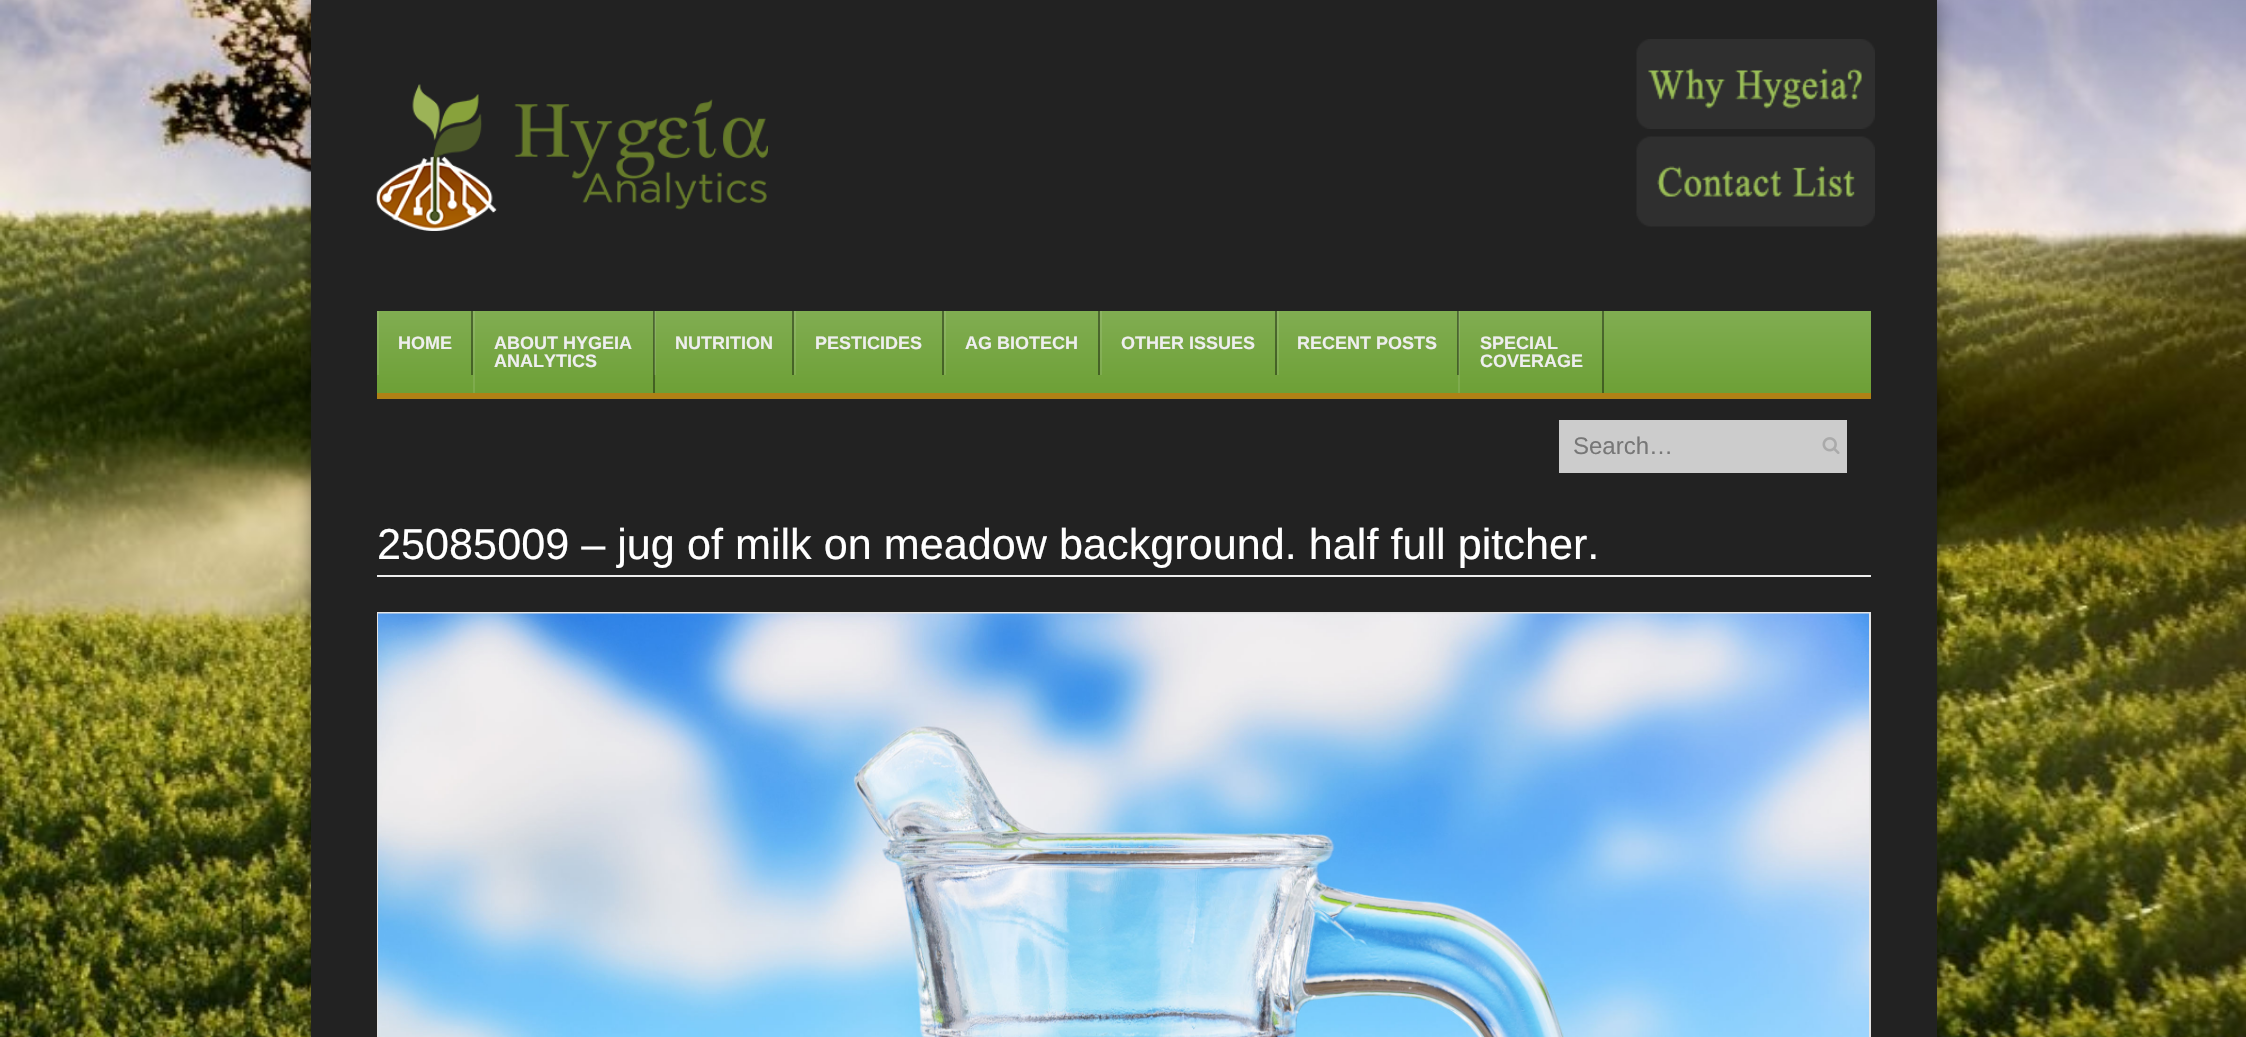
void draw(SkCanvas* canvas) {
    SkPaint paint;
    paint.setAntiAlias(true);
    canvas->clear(0xFFFFFFFF);
    canvas->drawImageRect(SkImages::DeferredFromEncodedData(SkData::MakeFromFileName("img1.png")), SkRect::MakeXYWH(0, 0, 2246, 1037), SkSamplingOptions());
    paint.setColor(0x66000000);
    paint.setMaskFilter(SkMaskFilter::MakeBlur(kNormal_SkBlurStyle, 9));
    canvas->drawRect(SkRect::MakeXYWH(311, 0, 1626, 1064), paint);
    paint.setMaskFilter(nullptr);
    paint.setColor(0xFF222222);
    canvas->drawRect(SkRect::MakeXYWH(311, 0, 1626, 1037), paint);
    canvas->drawImageRect(SkImages::DeferredFromEncodedData(SkData::MakeFromFileName("img2.png")), SkRect::MakeXYWH(376, 84, 392, 147), SkSamplingOptions());
    canvas->drawImageRect(SkImages::DeferredFromEncodedData(SkData::MakeFromFileName("img3.png")), SkRect::MakeXYWH(1636, 39, 239, 90), SkSamplingOptions());
    canvas->drawImageRect(SkImages::DeferredFromEncodedData(SkData::MakeFromFileName("img4.png")), SkRect::MakeXYWH(1636, 136, 239, 91), SkSamplingOptions());
    {
        const SkColor colors[] = {0xFF81AD52, 0xFF6DA036};
        const float stops[] = {0, 1};
        const SkPoint ends[] = {{1124, 310}, {1124, 393}};
        paint.setShader(SkGradientShader::MakeLinear(ends, colors, stops, 2, SkTileMode::kClamp));
        paint.setAlpha(255);
    }
    canvas->drawRect(SkRect::MakeXYWH(377, 311, 1494, 82), paint);
    paint.setShader(nullptr);
    paint.setColor(0xFFAF8115);
    canvas->drawRect(SkRect::MakeXYWH(377, 393, 1494, 6), paint);
    paint.setColor(0x66000000);
    canvas->drawRect(SkRect::MakeXYWH(471, 311, 2, 64), paint);
    paint.setColor(0x1AFFFFFF);
    canvas->drawRect(SkRect::MakeXYWH(377, 311, 2, 64), paint);
    SkFont font1(fontMgr->matchFamilyStyle("Liberation Sans", SkFontStyle::Bold()), 18);
    font1.setSubpixel(true);
    paint.setColor(0xFFEEEEEE);
    canvas->drawString("HOME", 398, 349, font1, paint);
    paint.setColor(0x66000000);
    canvas->drawRect(SkRect::MakeXYWH(653, 311, 2, 82), paint);
    paint.setColor(0x1AFFFFFF);
    canvas->drawRect(SkRect::MakeXYWH(473, 311, 2, 82), paint);
    paint.setColor(0xFFEEEEEE);
    canvas->drawString("ABOUT HYGEIA", 494, 349, font1, paint);
    canvas->drawString("ANALYTICS", 494, 367, font1, paint);
    paint.setColor(0x66000000);
    canvas->drawRect(SkRect::MakeXYWH(792, 311, 2, 64), paint);
    paint.setColor(0x1AFFFFFF);
    canvas->drawRect(SkRect::MakeXYWH(654, 311, 2, 64), paint);
    paint.setColor(0xFFEEEEEE);
    canvas->drawString("NUTRITION", 675, 349, font1, paint);
    paint.setColor(0x66000000);
    canvas->drawRect(SkRect::MakeXYWH(942, 311, 2, 64), paint);
    paint.setColor(0x1AFFFFFF);
    canvas->drawRect(SkRect::MakeXYWH(794, 311, 2, 64), paint);
    paint.setColor(0xFFEEEEEE);
    canvas->drawString("PESTICIDES", 815, 349, font1, paint);
    paint.setColor(0x66000000);
    canvas->drawRect(SkRect::MakeXYWH(1098, 311, 2, 64), paint);
    paint.setColor(0x1AFFFFFF);
    canvas->drawRect(SkRect::MakeXYWH(944, 311, 2, 64), paint);
    paint.setColor(0xFFEEEEEE);
    canvas->drawString("AG BIOTECH", 965, 349, font1, paint);
    paint.setColor(0x66000000);
    canvas->drawRect(SkRect::MakeXYWH(1275, 311, 2, 64), paint);
    paint.setColor(0x1AFFFFFF);
    canvas->drawRect(SkRect::MakeXYWH(1100, 311, 2, 64), paint);
    paint.setColor(0xFFEEEEEE);
    canvas->drawString("OTHER ISSUES", 1121, 349, font1, paint);
    paint.setColor(0x66000000);
    canvas->drawRect(SkRect::MakeXYWH(1457, 311, 2, 64), paint);
    paint.setColor(0x1AFFFFFF);
    canvas->drawRect(SkRect::MakeXYWH(1277, 311, 2, 64), paint);
    paint.setColor(0xFFEEEEEE);
    canvas->drawString("RECENT POSTS", 1297, 349, font1, paint);
    paint.setColor(0x66000000);
    canvas->drawRect(SkRect::MakeXYWH(1602, 311, 2, 82), paint);
    paint.setColor(0x1AFFFFFF);
    canvas->drawRect(SkRect::MakeXYWH(1458, 311, 2, 82), paint);
    paint.setColor(0xFFEEEEEE);
    canvas->drawString("SPECIAL", 1480, 349, font1, paint);
    canvas->drawString("COVERAGE", 1480, 367, font1, paint);
    paint.setColor(0xFFCCCCCC);
    canvas->drawRect(SkRect::MakeXYWH(1559, 420, 288, 53), paint);
    SkFont font2(fontMgr->matchFamilyStyle("Liberation Sans", SkFontStyle::Normal()), 24);
    font2.setSubpixel(true);
    paint.setColor(0xFF777777);
    canvas->drawString("Search…", 1573, 454, font2, paint);
    canvas->drawImageRect(SkImages::DeferredFromEncodedData(SkData::MakeFromFileName("img5.png")), SkRect::MakeXYWH(1822, 437, 18, 17), SkSamplingOptions());
    paint.setColor(0xFFEEEEEE);
    canvas->drawRect(SkRect::MakeXYWH(377, 575, 1494, 2), paint);
    SkFont font3(fontMgr->matchFamilyStyle("Liberation Sans", SkFontStyle::Normal()), 43.2f);
    font3.setSubpixel(true);
    paint.setColor(0xFFFFFFFF);
    canvas->drawString("25085009 – jug of milk on meadow background. half full pitcher.", 377, 559, font3, paint);
    paint.setStyle(SkPaint::kStroke_Style);
    paint.setStrokeWidth(2);
    paint.setColor(0xFFE4E4E4);
    canvas->drawRect(SkRect::MakeXYWH(378, 613, 1492, 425), paint);
    canvas->drawImageRect(SkImages::DeferredFromEncodedData(SkData::MakeFromFileName("img6.png")), SkRect::MakeXYWH(378, 613, 1491, 424), SkSamplingOptions());
}
